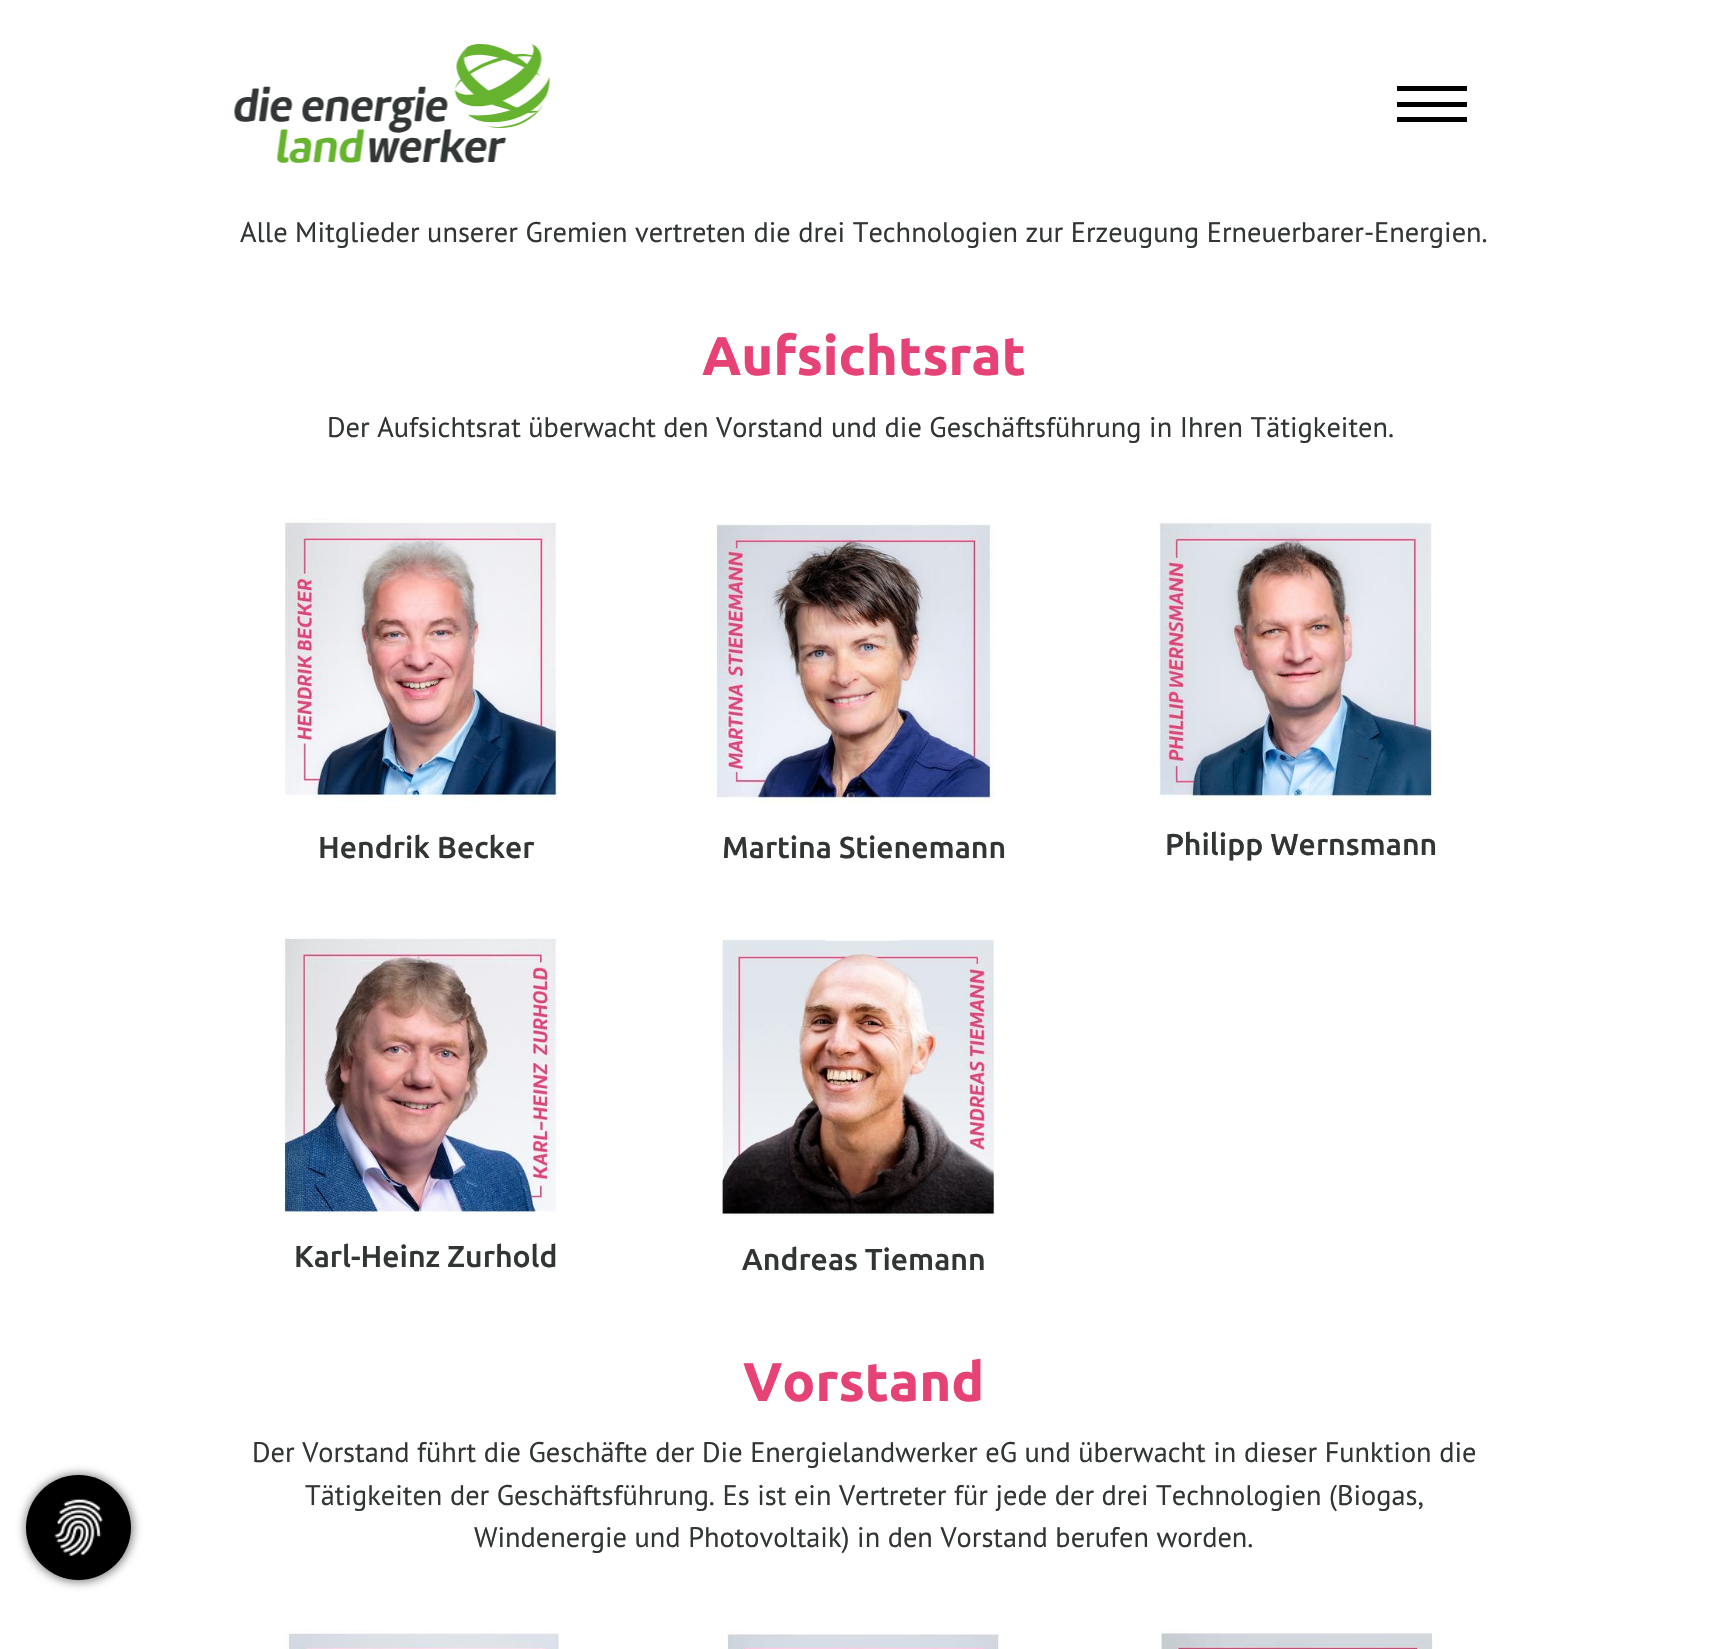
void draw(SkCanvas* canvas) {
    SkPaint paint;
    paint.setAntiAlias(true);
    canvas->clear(0xFFFFFFFF);
    canvas->drawImageRect(SkImages::DeferredFromEncodedData(SkData::MakeFromFileName("img1.png")), SkRect::MakeXYWH(234, 44, 316, 119), SkSamplingOptions());
    paint.setColor(0xFF000000);
    canvas->drawRect(SkRect::MakeXYWH(1397, 102, 70, 5), paint);
    canvas->drawRect(SkRect::MakeXYWH(1397, 86, 70, 5), paint);
    canvas->drawRect(SkRect::MakeXYWH(1397, 117, 70, 5), paint);
    paint.setColor(0x80000000);
    paint.setMaskFilter(SkMaskFilter::MakeBlur(kNormal_SkBlurStyle, 5));
    canvas->drawRoundRect(SkRect::MakeXYWH(25, 1474, 108, 108), 54, 54, paint);
    paint.setMaskFilter(nullptr);
    paint.setColor(0xFF000000);
    canvas->drawCircle(78.5f, 1527.5f, 52.5f, paint);
    canvas->drawImageRect(SkImages::DeferredFromEncodedData(SkData::MakeFromFileName("img2.png")), SkRect::MakeXYWH(54, 1499, 49, 57), SkSamplingOptions());
    SkFont font1(fontMgr->matchFamilyStyle("PT Sans", SkFontStyle::Normal()), 28.35f);
    font1.setSubpixel(true);
    paint.setColor(0xFF323535);
    canvas->drawString("Alle Mitglieder unserer Gremien vertreten die drei Technologien zur Erzeugung Erneuerbarer-Energien.", 240, 242, font1, paint);
    SkFont font2(fontMgr->matchFamilyStyle("Ubuntu", SkFontStyle::Bold()), 54.5f);
    font2.setSubpixel(true);
    paint.setColor(0xFFE74275);
    canvas->drawString("Aufsichtsrat", 702, 375, font2, paint);
    paint.setColor(0xFF323535);
    canvas->drawString("Der Aufsichtsrat überwacht den Vorstand und die Geschäftsführung in Ihren Tätigkeiten.", 327, 437, font1, paint);
    canvas->drawImageRect(SkImages::DeferredFromEncodedData(SkData::MakeFromFileName("img3.png")), SkRect::MakeXYWH(284, 519, 274, 284), SkSamplingOptions());
    SkFont font3(fontMgr->matchFamilyStyle("Ubuntu", SkFontStyle(500, SkFontStyle::kNormal_Width, SkFontStyle::kUpright_Slant)), 30.25f);
    font3.setSubpixel(true);
    canvas->drawString("Hendrik Becker", 318, 858, font3, paint);
    canvas->drawImageRect(SkImages::DeferredFromEncodedData(SkData::MakeFromFileName("img4.png")), SkRect::MakeXYWH(708, 524, 287, 280), SkSamplingOptions());
    canvas->drawString("Martina Stienemann", 722, 858, font3, paint);
    canvas->drawImageRect(SkImages::DeferredFromEncodedData(SkData::MakeFromFileName("img5.png")), SkRect::MakeXYWH(1157, 518, 276, 283), SkSamplingOptions());
    canvas->drawString("Philipp Wernsmann", 1165, 855, font3, paint);
    canvas->drawImageRect(SkImages::DeferredFromEncodedData(SkData::MakeFromFileName("img6.png")), SkRect::MakeXYWH(284, 936, 274, 276), SkSamplingOptions());
    canvas->drawString("Karl-Heinz Zurhold", 294, 1267, font3, paint);
    canvas->drawImageRect(SkImages::DeferredFromEncodedData(SkData::MakeFromFileName("img7.png")), SkRect::MakeXYWH(720, 937, 275, 280), SkSamplingOptions());
    canvas->drawString("Andreas Tiemann", 742, 1270, font3, paint);
    paint.setColor(0xFFE74275);
    canvas->drawString("Vorstand", 743, 1401, font2, paint);
    paint.setColor(0xFF323535);
    canvas->drawString("Der Vorstand führt die Geschäfte der Die Energielandwerker eG und überwacht in dieser Funktion die", 252, 1462, font1, paint);
    canvas->drawString("Tätigkeiten der Geschäftsführung. Es ist ein Vertreter für jede der drei Technologien (Biogas,", 305, 1505, font1, paint);
    canvas->drawString("Windenergie und Photovoltaik) in den Vorstand berufen worden.", 474, 1547, font1, paint);
    canvas->drawImageRect(SkImages::DeferredFromEncodedData(SkData::MakeFromFileName("img8.png")), SkRect::MakeXYWH(285, 1630, 274, 19), SkSamplingOptions());
    canvas->drawImageRect(SkImages::DeferredFromEncodedData(SkData::MakeFromFileName("img9.png")), SkRect::MakeXYWH(727, 1630, 272, 19), SkSamplingOptions());
    canvas->drawImageRect(SkImages::DeferredFromEncodedData(SkData::MakeFromFileName("img10.png")), SkRect::MakeXYWH(1158, 1629, 275, 20), SkSamplingOptions());
}
